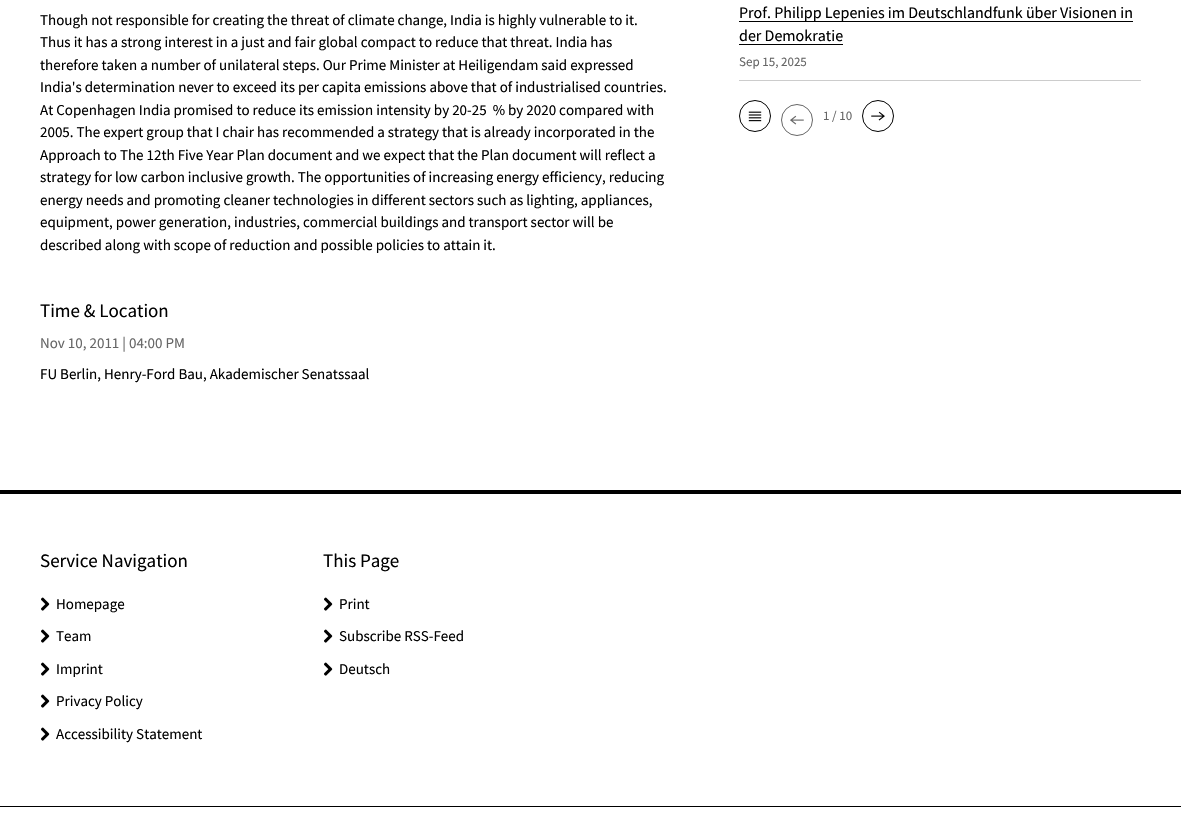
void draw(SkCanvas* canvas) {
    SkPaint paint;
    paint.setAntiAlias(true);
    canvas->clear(0xFFFFFFFF);
    SkFont font1(fontMgr->matchFamilyStyle("Source Sans Pro", SkFontStyle::Normal()), 15);
    font1.setSubpixel(true);
    paint.setColor(0xFF000000);
    canvas->drawString("Though not responsible for creating the threat of climate change, India is highly vulnerable to it.", 40, 25, font1, paint);
    canvas->drawString("Thus it has a strong interest in a just and fair global compact to reduce that threat. India has", 40, 47, font1, paint);
    canvas->drawString("therefore taken a number of unilateral steps. Our Prime Minister at Heiligendam said expressed", 40, 70, font1, paint);
    canvas->drawString("India's determination never to exceed its per capita emissions above that of industrialised countries.", 40, 92, font1, paint);
    canvas->drawString("At Copenhagen India promised to reduce its emission intensity by 20-25  % by 2020 compared with", 40, 115, font1, paint);
    canvas->drawString("2005. The expert group that I chair has recommended a strategy that is already incorporated in the", 40, 137, font1, paint);
    canvas->drawString("Approach to The 12th Five Year Plan document and we expect that the Plan document will reflect a", 40, 160, font1, paint);
    canvas->drawString("strategy for low carbon inclusive growth. The opportunities of increasing energy efficiency, reducing", 40, 182, font1, paint);
    canvas->drawString("energy needs and promoting cleaner technologies in different sectors such as lighting, appliances,", 40, 205, font1, paint);
    canvas->drawString("equipment, power generation, industries, commercial buildings and transport sector will be", 40, 227, font1, paint);
    canvas->drawString("described along with scope of reduction and possible policies to attain it.", 40, 250, font1, paint);
    SkFont font2(fontMgr->matchFamilyStyle("Source Sans Pro", SkFontStyle::Normal()), 19);
    font2.setSubpixel(true);
    canvas->drawString("Time & Location", 40, 317, font2, paint);
    paint.setColor(0xFF666666);
    canvas->drawString("Nov 10, 2011 | 04:00 PM", 40, 348, font1, paint);
    paint.setColor(0xFF000000);
    canvas->drawString("FU Berlin, Henry-Ford Bau, Akademischer Senatssaal", 40, 379, font1, paint);
    paint.setColor(0xFFCCCCCC);
    canvas->drawRect(SkRect::MakeXYWH(739, 80, 402, 1), paint);
    paint.setColor(0xFF000000);
    canvas->drawRect(SkRect::MakeXYWH(739, 21, 394, 1), paint);
    SkFont font3(fontMgr->matchFamilyStyle("Source Sans Pro", SkFontStyle::Normal()), 16);
    font3.setSubpixel(true);
    canvas->drawString("Prof. Philipp Lepenies im Deutschlandfunk über Visionen in", 739, 18, font3, paint);
    canvas->drawString("der Demokratie", 739, 41, font3, paint);
    canvas->drawRect(SkRect::MakeXYWH(739, 44, 104, 1), paint);
    SkFont font4(fontMgr->matchFamilyStyle("Source Sans Pro", SkFontStyle::Normal()), 13);
    font4.setSubpixel(true);
    paint.setColor(0xFF666666);
    canvas->drawString("Sep 15, 2025", 739, 66, font4, paint);
    paint.setStyle(SkPaint::kStroke_Style);
    paint.setStrokeWidth(1);
    paint.setColor(0xFF000000);
    canvas->drawCircle(755, 116, 15.5f, paint);
    canvas->drawImageRect(SkImages::DeferredFromEncodedData(SkData::MakeFromFileName("img1.png")), SkRect::MakeXYWH(748, 111, 14, 11), SkSamplingOptions());
    paint.setColor(0xFF666666);
    canvas->drawCircle(797, 120, 15.5f, paint);
    canvas->drawImageRect(SkImages::DeferredFromEncodedData(SkData::MakeFromFileName("img2.png")), SkRect::MakeXYWH(790, 115, 14, 10), SkSamplingOptions());
    paint.setStyle(SkPaint::kFill_Style);
    canvas->drawString("1 / 10", 823, 120, font4, paint);
    paint.setStyle(SkPaint::kStroke_Style);
    paint.setColor(0xFF000000);
    canvas->drawCircle(878, 116, 15.5f, paint);
    canvas->drawImageRect(SkImages::DeferredFromEncodedData(SkData::MakeFromFileName("img3.png")), SkRect::MakeXYWH(871, 111, 14, 10), SkSamplingOptions());
    paint.setStyle(SkPaint::kFill_Style);
    canvas->drawRect(SkRect::MakeXYWH(0, 490, 1181, 4), paint);
    canvas->drawRect(SkRect::MakeXYWH(0, 806, 1181, 1), paint);
    canvas->drawString("Service Navigation", 40, 567, font2, paint);
    canvas->drawImageRect(SkImages::DeferredFromEncodedData(SkData::MakeFromFileName("img4.png")), SkRect::MakeXYWH(41, 597, 9, 14), SkSamplingOptions());
    canvas->drawString("Homepage", 56, 609, font1, paint);
    canvas->drawImageRect(SkImages::DeferredFromEncodedData(SkData::MakeFromFileName("img4.png")), SkRect::MakeXYWH(41, 629, 9, 14), SkSamplingOptions());
    canvas->drawString("Team", 56, 641, font1, paint);
    canvas->drawImageRect(SkImages::DeferredFromEncodedData(SkData::MakeFromFileName("img4.png")), SkRect::MakeXYWH(41, 662, 9, 14), SkSamplingOptions());
    canvas->drawString("Imprint", 56, 674, font1, paint);
    canvas->drawImageRect(SkImages::DeferredFromEncodedData(SkData::MakeFromFileName("img4.png")), SkRect::MakeXYWH(41, 694, 9, 14), SkSamplingOptions());
    canvas->drawString("Privacy Policy", 56, 706, font1, paint);
    canvas->drawImageRect(SkImages::DeferredFromEncodedData(SkData::MakeFromFileName("img4.png")), SkRect::MakeXYWH(41, 727, 9, 14), SkSamplingOptions());
    canvas->drawString("Accessibility Statement", 56, 739, font1, paint);
    canvas->drawString("This Page", 323, 567, font2, paint);
    canvas->drawImageRect(SkImages::DeferredFromEncodedData(SkData::MakeFromFileName("img4.png")), SkRect::MakeXYWH(324, 597, 9, 14), SkSamplingOptions());
    canvas->drawString("Print", 339, 609, font1, paint);
    canvas->drawImageRect(SkImages::DeferredFromEncodedData(SkData::MakeFromFileName("img4.png")), SkRect::MakeXYWH(324, 629, 9, 14), SkSamplingOptions());
    canvas->drawString("Subscribe RSS-Feed", 339, 641, font1, paint);
    canvas->drawImageRect(SkImages::DeferredFromEncodedData(SkData::MakeFromFileName("img4.png")), SkRect::MakeXYWH(324, 662, 9, 14), SkSamplingOptions());
    canvas->drawString("Deutsch", 339, 674, font1, paint);
}
